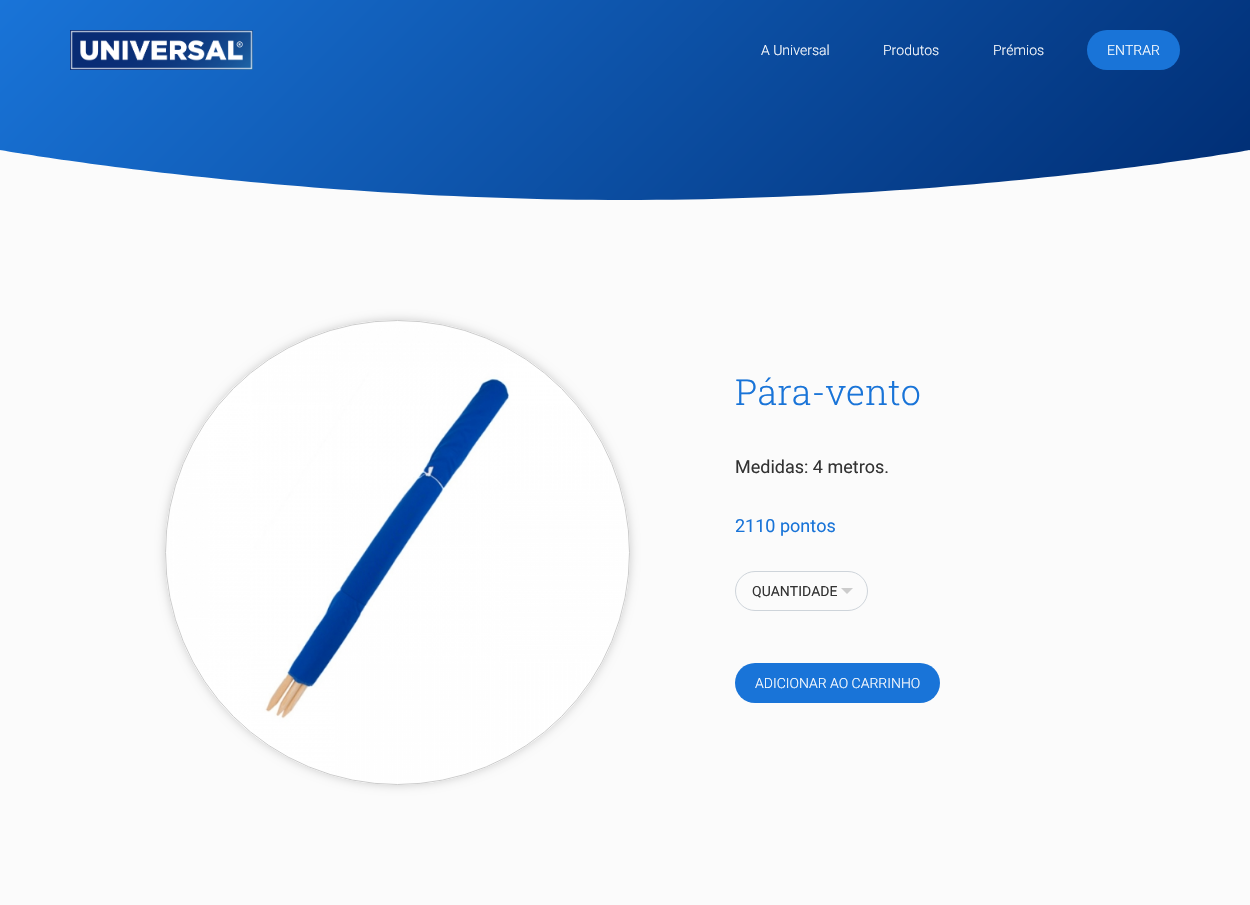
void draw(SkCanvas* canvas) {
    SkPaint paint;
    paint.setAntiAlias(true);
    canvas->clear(0xFFFFFFFF);
    {
        const SkColor colors[] = {0xFF1974D8, 0xFF002D73};
        const float stops[] = {0, 1};
        const SkPoint ends[] = {{262, -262}, {988, 463}};
        paint.setShader(SkGradientShader::MakeLinear(ends, colors, stops, 2, SkTileMode::kClamp));
        paint.setAlpha(255);
    }
    canvas->drawRect(SkRect::MakeXYWH(0, 0, 1250, 200), paint);
    canvas->drawImageRect(SkImages::DeferredFromEncodedData(SkData::MakeFromFileName("img1.png")), SkRect::MakeXYWH(70, 30, 183, 40), SkSamplingOptions());
    SkFont font1(fontMgr->matchFamilyStyle("Roboto", SkFontStyle(300, SkFontStyle::kNormal_Width, SkFontStyle::kUpright_Slant)), 14);
    font1.setSubpixel(true);
    paint.setShader(nullptr);
    paint.setColor(0xFFFFFFFF);
    canvas->drawString("A Universal", 761, 55, font1, paint);
    canvas->drawString("Produtos", 883, 55, font1, paint);
    canvas->drawString("Prémios", 993, 55, font1, paint);
    paint.setColor(0xFF1974D8);
    canvas->drawRoundRect(SkRect::MakeXYWH(1087, 30, 93, 40), 20, 20, paint);
    paint.setColor(0xFFFFFFFF);
    canvas->drawString("ENTRAR", 1107, 55, font1, paint);
    paint.setColor(0xFFFBFBFB);
    canvas->drawPath(SkPathBuilder().moveTo(1250, 200).lineTo(1250, 150).cubicTo(1250, 150, 970, 200, 625, 200).close().detach(), paint);
    canvas->drawPath(SkPathBuilder().moveTo(0, 200).lineTo(625, 200).cubicTo(280, 200, 0, 150, 0, 150).close().detach(), paint);
    canvas->drawRect(SkRect::MakeXYWH(0, 200, 1250, 705), paint);
    paint.setColor(0xFFCCCCCC);
    paint.setMaskFilter(SkMaskFilter::MakeBlur(kNormal_SkBlurStyle, 5));
    canvas->drawRoundRect(SkRect::MakeXYWH(165, 320, 465, 465), 232.5f, 232.5f, paint);
    paint.setMaskFilter(nullptr);
    paint.setColor(0xFFFFFFFF);
    canvas->drawCircle(397.5f, 552.5f, 232.5f, paint);
    canvas->drawImageRect(SkImages::DeferredFromEncodedData(SkData::MakeFromFileName("img2.png")), SkRect::MakeXYWH(166, 321, 463, 462), SkSamplingOptions());
    paint.setStyle(SkPaint::kStroke_Style);
    paint.setStrokeWidth(1);
    paint.setColor(0xFFCCCCCC);
    canvas->drawCircle(397.5f, 552.5f, 232, paint);
    SkFont font2(fontMgr->matchFamilyStyle("Roboto Slab", SkFontStyle(300, SkFontStyle::kNormal_Width, SkFontStyle::kUpright_Slant)), 36);
    font2.setSubpixel(true);
    paint.setStyle(SkPaint::kFill_Style);
    paint.setColor(0xFF1974D8);
    canvas->drawString("Pára-vento", 735, 405, font2, paint);
    SkFont font3(fontMgr->matchFamilyStyle("Roboto", SkFontStyle::Normal()), 18);
    font3.setSubpixel(true);
    paint.setColor(0xFF333333);
    canvas->drawString("Medidas: 4 metros.", 735, 473, font3, paint);
    paint.setColor(0xFF1974D8);
    canvas->drawString("2110 pontos", 735, 532, font3, paint);
    paint.setStyle(SkPaint::kStroke_Style);
    paint.setColor(0xFFCED4DA);
    canvas->drawRoundRect(SkRect::MakeXYWH(735.5f, 571.5f, 132, 39), 19.5f, 19.5f, paint);
    SkFont font4(fontMgr->matchFamilyStyle("Roboto", SkFontStyle::Normal()), 14);
    font4.setSubpixel(true);
    paint.setStyle(SkPaint::kFill_Style);
    paint.setColor(0xFF333333);
    canvas->drawString("QUANTIDADE", 752, 596, font4, paint);
    paint.setColor(0xFFCCCCCC);
    canvas->drawPath(SkPathBuilder().moveTo(841, 588).lineTo(853, 588).lineTo(847, 594).close().detach(), paint);
    paint.setColor(0xFF1974D8);
    canvas->drawRoundRect(SkRect::MakeXYWH(735, 663, 205, 40), 20, 20, paint);
    paint.setColor(0xFFFFFFFF);
    canvas->drawString("ADICIONAR AO CARRINHO", 755, 688, font1, paint);
}
